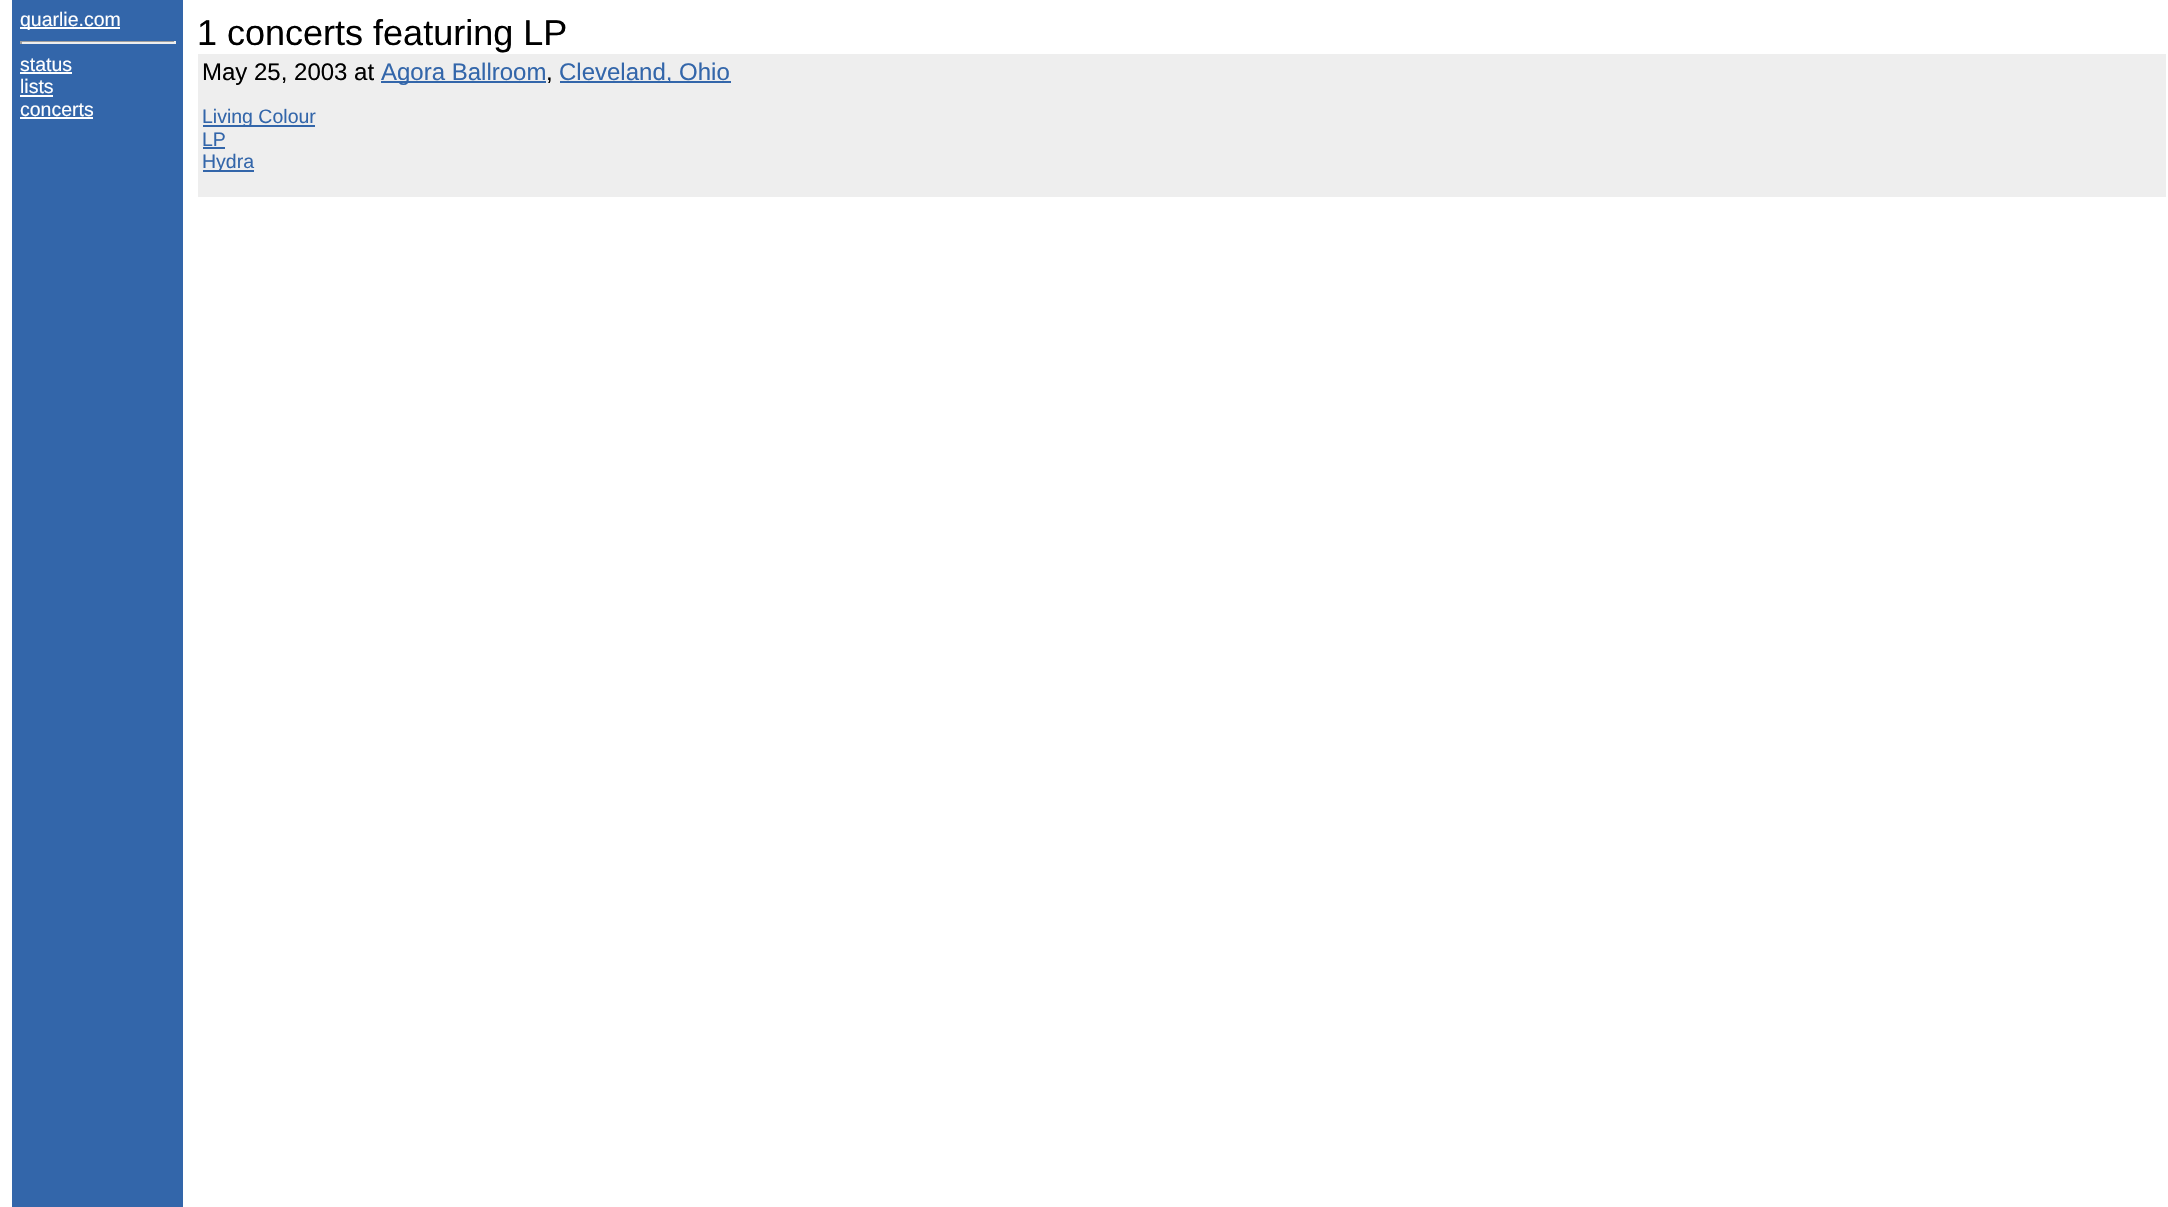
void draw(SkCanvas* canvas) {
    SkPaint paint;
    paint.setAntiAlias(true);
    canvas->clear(0xFFFFFFFF);
    paint.setColor(0xFF3366AA);
    canvas->drawRect(SkRect::MakeXYWH(12, 0, 171, 1207), paint);
    paint.setColor(0xFFFFFFFF);
    canvas->drawRect(SkRect::MakeXYWH(20, 27, 100, 2), paint);
    SkFont font1(fontMgr->matchFamilyStyle("Liberation Sans", SkFontStyle::Normal()), 19.5f);
    font1.setSubpixel(true);
    canvas->drawString("quarlie.com", 20, 26, font1, paint);
    paint.setColor(0xFF9F9F9F);
    canvas->drawRect(SkRect::MakeXYWH(20, 41, 156, 1), paint);
    paint.setColor(0xFFEEEEEE);
    canvas->drawRect(SkRect::MakeXYWH(174, 41, 2, 3), paint);
    canvas->drawRect(SkRect::MakeXYWH(20, 42, 156, 2), paint);
    paint.setColor(0xFF9F9F9F);
    canvas->drawRect(SkRect::MakeXYWH(20, 41, 2, 3), paint);
    paint.setColor(0xFFFFFFFF);
    canvas->drawString("status", 20, 71, font1, paint);
    canvas->drawRect(SkRect::MakeXYWH(20, 72, 52, 2), paint);
    canvas->drawString("lists", 20, 93, font1, paint);
    canvas->drawRect(SkRect::MakeXYWH(20, 95, 33, 2), paint);
    canvas->drawString("concerts", 20, 116, font1, paint);
    canvas->drawRect(SkRect::MakeXYWH(20, 117, 73, 2), paint);
    SkFont font2(fontMgr->matchFamilyStyle("Liberation Sans", SkFontStyle::Normal()), 36);
    font2.setSubpixel(true);
    paint.setColor(0xFF000000);
    canvas->drawString("1 concerts featuring LP", 197, 45, font2, paint);
    paint.setColor(0xFFEEEEEE);
    canvas->drawRect(SkRect::MakeXYWH(198, 54, 1968, 143), paint);
    SkFont font3(fontMgr->matchFamilyStyle("Liberation Sans", SkFontStyle::Normal()), 24);
    font3.setSubpixel(true);
    paint.setColor(0xFF000000);
    canvas->drawString("May 25, 2003 at", 202, 80, font3, paint);
    paint.setColor(0xFF3366AA);
    canvas->drawRect(SkRect::MakeXYWH(381, 81, 165, 2), paint);
    canvas->drawString("Agora Ballroom", 381, 80, font3, paint);
    paint.setColor(0xFF000000);
    canvas->drawString(",", 546, 80, font3, paint);
    paint.setColor(0xFF3366AA);
    canvas->drawRect(SkRect::MakeXYWH(560, 81, 171, 2), paint);
    canvas->drawString("Cleveland, Ohio", 559, 80, font3, paint);
    canvas->drawRect(SkRect::MakeXYWH(203, 125, 112, 2), paint);
    canvas->drawString("Living Colour", 202, 123, font1, paint);
    canvas->drawString("LP", 202, 146, font1, paint);
    canvas->drawRect(SkRect::MakeXYWH(203, 147, 22, 2), paint);
    canvas->drawRect(SkRect::MakeXYWH(203, 170, 51, 2), paint);
    canvas->drawString("Hydra", 202, 168, font1, paint);
}
